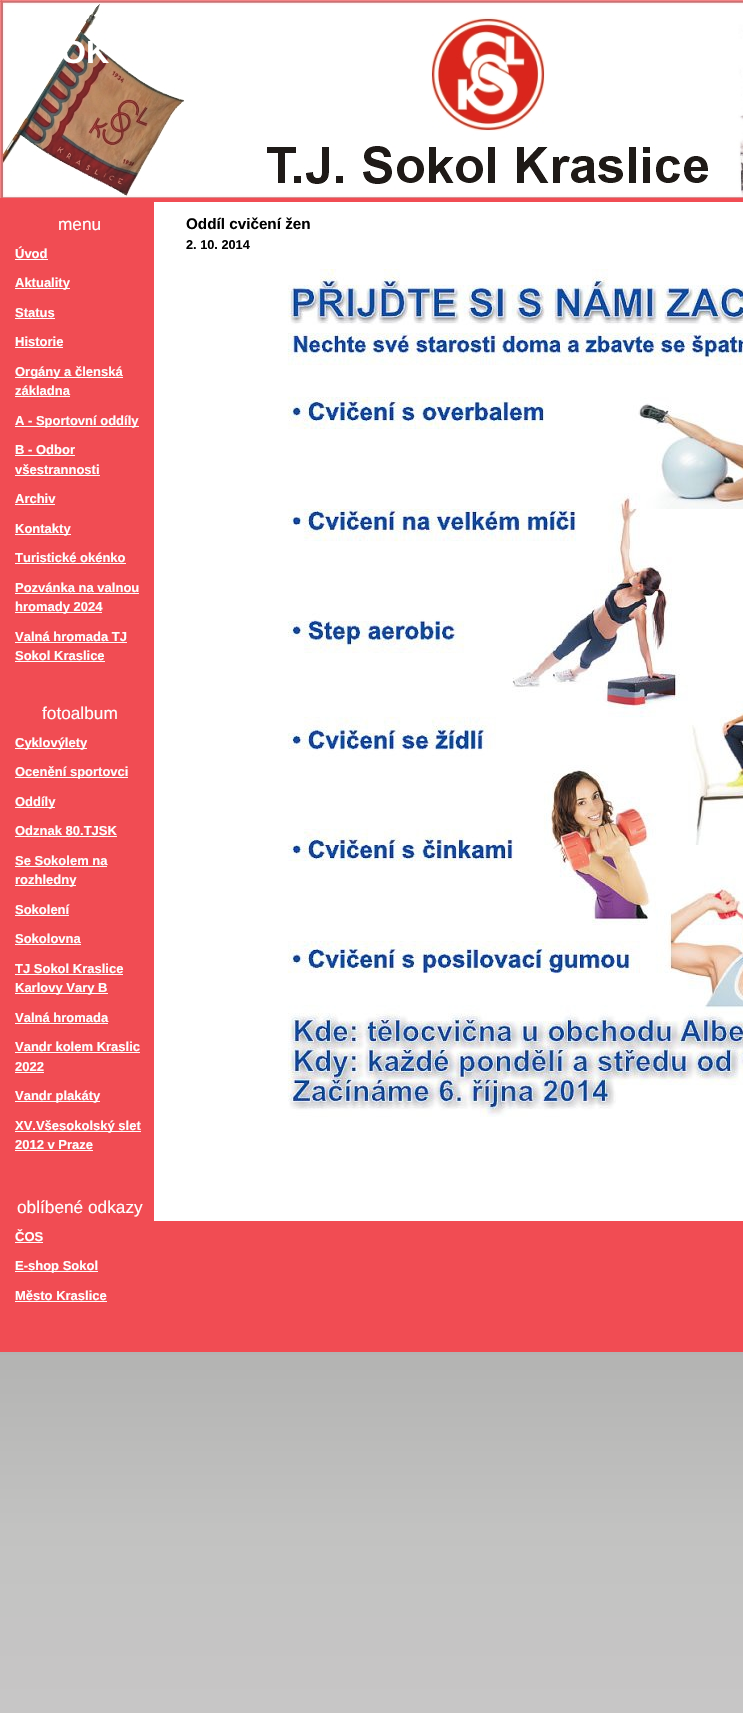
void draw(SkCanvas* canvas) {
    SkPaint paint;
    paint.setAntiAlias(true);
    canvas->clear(0xFFFFFFFF);
    canvas->drawImageRect(SkImages::DeferredFromEncodedData(SkData::MakeFromFileName("img1.png")), SkRect::MakeXYWH(0, 1352, 743, 361), SkSamplingOptions());
    paint.setColor(0xFFF14C53);
    canvas->drawRect(SkRect::MakeXYWH(0, 198, 743, 1154), paint);
    canvas->drawImageRect(SkImages::DeferredFromEncodedData(SkData::MakeFromFileName("img2.png")), SkRect::MakeXYWH(0, 0, 743, 198), SkSamplingOptions());
    SkFont font1(fontMgr->matchFamilyStyle("Liberation Sans", SkFontStyle::Bold()), 32);
    font1.setSubpixel(true);
    paint.setColor(0xFFFFFFFF);
    canvas->drawString("OK", 61, 63, font1, paint);
    SkFont font2(fontMgr->matchFamilyStyle("Liberation Sans", SkFontStyle::Normal()), 17.25f);
    font2.setSubpixel(true);
    canvas->drawString("menu", 58, 230, font2, paint);
    SkFont font3(fontMgr->matchFamilyStyle("Liberation Sans", SkFontStyle::Bold()), 13);
    font3.setSubpixel(true);
    canvas->drawString("Úvod", 15, 258, font3, paint);
    canvas->drawRect(SkRect::MakeXYWH(15, 259, 33, 1), paint);
    canvas->drawRect(SkRect::MakeXYWH(15, 288, 55, 1), paint);
    canvas->drawString("Aktuality", 15, 287, font3, paint);
    canvas->drawString("Status", 15, 317, font3, paint);
    canvas->drawRect(SkRect::MakeXYWH(15, 318, 40, 1), paint);
    canvas->drawString("Historie", 15, 346, font3, paint);
    canvas->drawRect(SkRect::MakeXYWH(15, 347, 48, 1), paint);
    canvas->drawRect(SkRect::MakeXYWH(15, 377, 108, 1), paint);
    canvas->drawString("Orgány a členská", 15, 376, font3, paint);
    canvas->drawString("základna", 15, 395, font3, paint);
    canvas->drawRect(SkRect::MakeXYWH(15, 396, 55, 1), paint);
    canvas->drawRect(SkRect::MakeXYWH(15, 426, 124, 1), paint);
    canvas->drawString("A - Sportovní oddíly", 15, 425, font3, paint);
    canvas->drawString("B - Odbor", 15, 454, font3, paint);
    canvas->drawRect(SkRect::MakeXYWH(15, 455, 60, 1), paint);
    canvas->drawString("všestrannosti", 15, 474, font3, paint);
    canvas->drawRect(SkRect::MakeXYWH(15, 475, 85, 1), paint);
    canvas->drawString("Archiv", 15, 503, font3, paint);
    canvas->drawRect(SkRect::MakeXYWH(15, 504, 40, 1), paint);
    canvas->drawRect(SkRect::MakeXYWH(15, 534, 56, 1), paint);
    canvas->drawString("Kontakty", 15, 533, font3, paint);
    canvas->drawString("Turistické okénko", 15, 562, font3, paint);
    canvas->drawRect(SkRect::MakeXYWH(15, 563, 111, 1), paint);
    canvas->drawString("Pozvánka na valnou", 15, 592, font3, paint);
    canvas->drawRect(SkRect::MakeXYWH(15, 593, 124, 1), paint);
    canvas->drawRect(SkRect::MakeXYWH(15, 612, 87, 1), paint);
    canvas->drawString("hromady 2024", 15, 611, font3, paint);
    canvas->drawString("Valná hromada TJ", 15, 641, font3, paint);
    canvas->drawRect(SkRect::MakeXYWH(15, 642, 112, 1), paint);
    canvas->drawString("Sokol Kraslice", 15, 660, font3, paint);
    canvas->drawRect(SkRect::MakeXYWH(15, 661, 90, 1), paint);
    canvas->drawString("fotoalbum", 42, 719, font2, paint);
    canvas->drawRect(SkRect::MakeXYWH(15, 748, 72, 1), paint);
    canvas->drawString("Cyklovýlety", 15, 747, font3, paint);
    canvas->drawRect(SkRect::MakeXYWH(15, 777, 113, 1), paint);
    canvas->drawString("Ocenění sportovci", 15, 776, font3, paint);
    canvas->drawRect(SkRect::MakeXYWH(15, 807, 40, 1), paint);
    canvas->drawString("Oddíly", 15, 806, font3, paint);
    canvas->drawString("Odznak 80.TJSK", 15, 835, font3, paint);
    canvas->drawRect(SkRect::MakeXYWH(15, 836, 102, 1), paint);
    canvas->drawString("Se Sokolem na", 15, 865, font3, paint);
    canvas->drawRect(SkRect::MakeXYWH(15, 866, 92, 1), paint);
    canvas->drawRect(SkRect::MakeXYWH(15, 885, 61, 1), paint);
    canvas->drawString("rozhledny", 15, 884, font3, paint);
    canvas->drawString("Sokolení", 15, 914, font3, paint);
    canvas->drawRect(SkRect::MakeXYWH(15, 915, 54, 1), paint);
    canvas->drawString("Sokolovna", 15, 943, font3, paint);
    canvas->drawRect(SkRect::MakeXYWH(15, 944, 66, 1), paint);
    canvas->drawString("TJ Sokol Kraslice", 15, 973, font3, paint);
    canvas->drawRect(SkRect::MakeXYWH(15, 974, 108, 1), paint);
    canvas->drawRect(SkRect::MakeXYWH(15, 993, 93, 1), paint);
    canvas->drawString("Karlovy Vary B", 15, 992, font3, paint);
    canvas->drawString("Valná hromada", 15, 1022, font3, paint);
    canvas->drawRect(SkRect::MakeXYWH(15, 1023, 93, 1), paint);
    canvas->drawString("Vandr kolem Kraslic", 15, 1051, font3, paint);
    canvas->drawRect(SkRect::MakeXYWH(15, 1052, 125, 1), paint);
    canvas->drawString("2022", 15, 1071, font3, paint);
    canvas->drawRect(SkRect::MakeXYWH(15, 1072, 29, 1), paint);
    canvas->drawRect(SkRect::MakeXYWH(15, 1101, 85, 1), paint);
    canvas->drawString("Vandr plakáty", 15, 1100, font3, paint);
    canvas->drawRect(SkRect::MakeXYWH(15, 1131, 126, 1), paint);
    canvas->drawString("XV.Všesokolský slet", 15, 1130, font3, paint);
    canvas->drawString("2012 v Praze", 15, 1149, font3, paint);
    canvas->drawRect(SkRect::MakeXYWH(15, 1150, 78, 1), paint);
    canvas->drawString("oblíbené odkazy", 17, 1213, font2, paint);
    canvas->drawString("ČOS", 15, 1241, font3, paint);
    canvas->drawRect(SkRect::MakeXYWH(15, 1242, 28, 1), paint);
    canvas->drawRect(SkRect::MakeXYWH(15, 1271, 83, 1), paint);
    canvas->drawString("E-shop Sokol", 15, 1270, font3, paint);
    canvas->drawString("Město Kraslice", 15, 1300, font3, paint);
    canvas->drawRect(SkRect::MakeXYWH(15, 1301, 92, 1), paint);
    canvas->drawRect(SkRect::MakeXYWH(154, 202, 589, 1019), paint);
    SkFont font4(fontMgr->matchFamilyStyle("Liberation Sans", SkFontStyle::Bold()), 15.25f);
    font4.setSubpixel(true);
    paint.setColor(0xFF000000);
    canvas->drawString("Oddíl cvičení žen", 186, 229, font4, paint);
    SkFont font5(fontMgr->matchFamilyStyle("Liberation Sans", SkFontStyle::Bold()), 12.75f);
    font5.setSubpixel(true);
    canvas->drawString("2. 10. 2014", 186, 249, font5, paint);
    canvas->drawImageRect(SkImages::DeferredFromEncodedData(SkData::MakeFromFileName("img3.png")), SkRect::MakeXYWH(287, 269, 456, 848), SkSamplingOptions());
}
